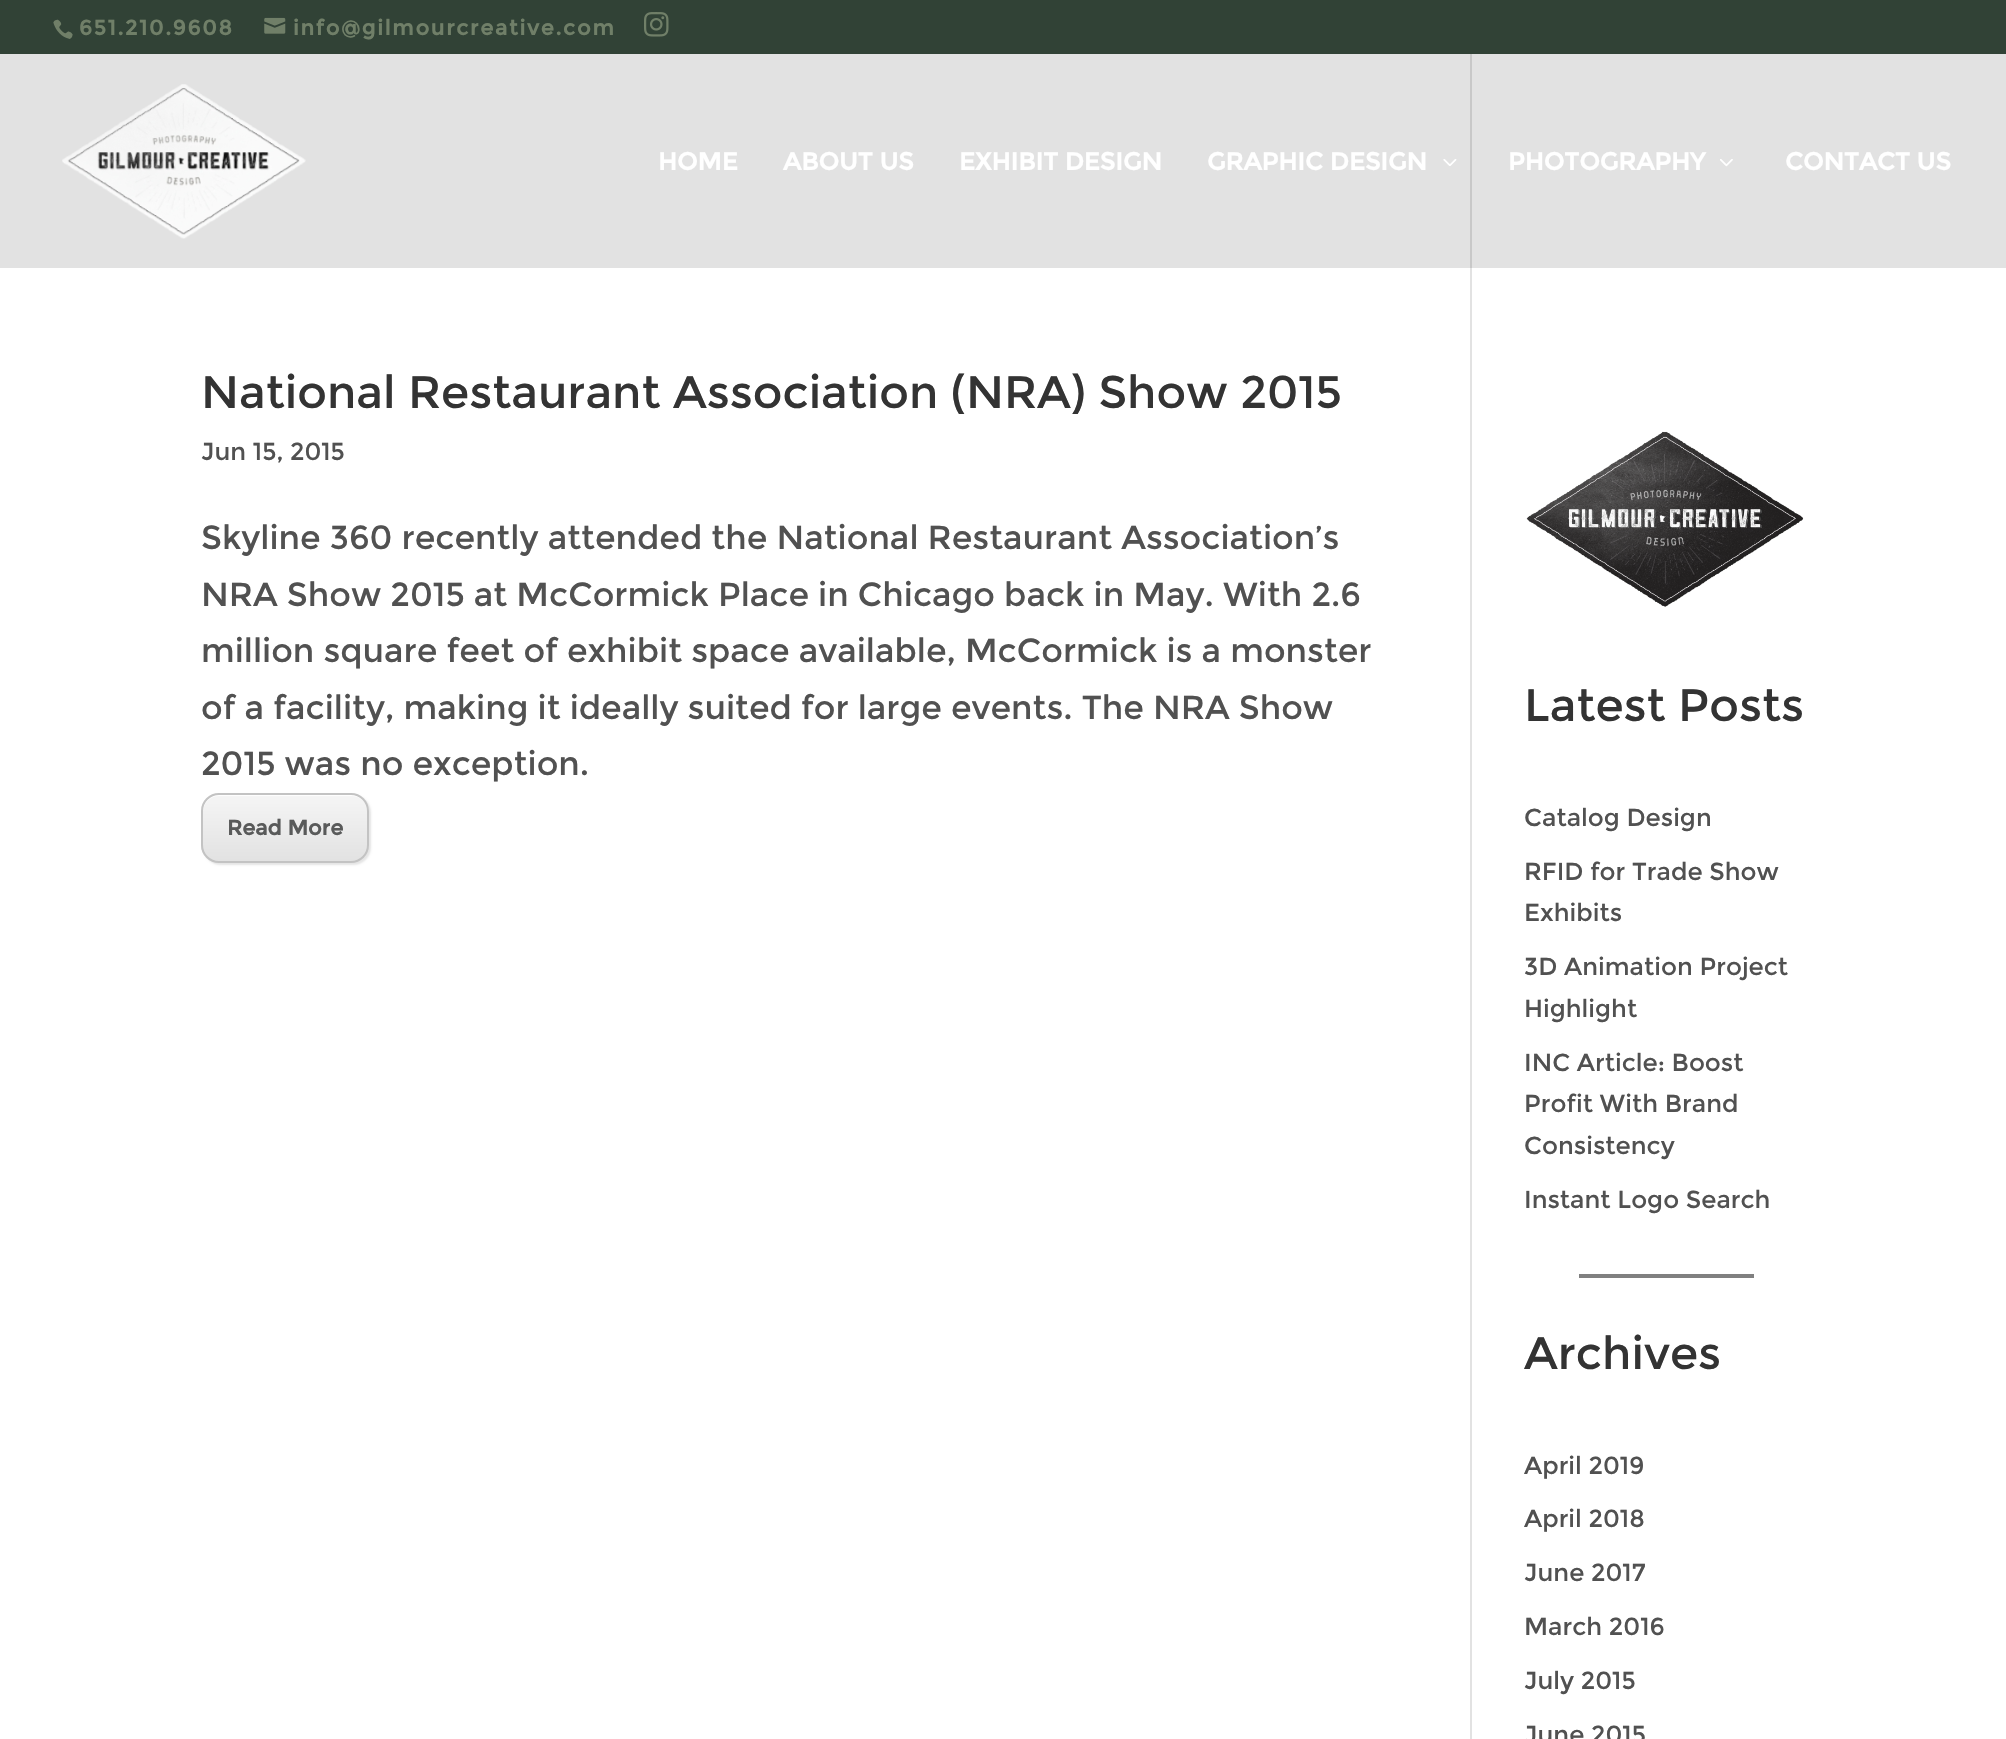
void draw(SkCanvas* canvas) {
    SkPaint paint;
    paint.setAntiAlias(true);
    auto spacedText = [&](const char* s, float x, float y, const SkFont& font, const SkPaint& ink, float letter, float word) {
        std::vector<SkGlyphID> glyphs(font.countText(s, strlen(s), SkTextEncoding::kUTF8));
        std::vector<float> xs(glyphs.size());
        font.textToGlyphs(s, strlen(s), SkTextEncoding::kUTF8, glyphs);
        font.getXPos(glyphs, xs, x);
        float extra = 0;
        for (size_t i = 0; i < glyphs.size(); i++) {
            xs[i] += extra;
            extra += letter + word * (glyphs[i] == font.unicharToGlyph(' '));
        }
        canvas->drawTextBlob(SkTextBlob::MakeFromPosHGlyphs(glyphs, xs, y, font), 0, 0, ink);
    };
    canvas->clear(0xFFFFFFFF);
    paint.setColor(0xFFE2E2E2);
    canvas->drawRect(SkRect::MakeXYWH(0, 54, 2006, 214), paint);
    paint.setColor(0xFF314236);
    canvas->drawRect(SkRect::MakeXYWH(0, 0, 2006, 54), paint);
    canvas->drawImageRect(SkImages::DeferredFromEncodedData(SkData::MakeFromFileName("img1.png")), SkRect::MakeXYWH(53, 19, 20, 20), SkSamplingOptions());
    SkFont font1(fontMgr->matchFamilyStyle("Montserrat", SkFontStyle::Bold()), 21);
    font1.setSubpixel(true);
    paint.setColor(0xFF707F68);
    spacedText("651.210.9608", 79, 35, font1, paint, 1.75f, 0);
    canvas->drawImageRect(SkImages::DeferredFromEncodedData(SkData::MakeFromFileName("img2.png")), SkRect::MakeXYWH(264, 17, 22, 17), SkSamplingOptions());
    spacedText("info@gilmourcreative.com", 293, 35, font1, paint, 1.75f, 0);
    canvas->drawImageRect(SkImages::DeferredFromEncodedData(SkData::MakeFromFileName("img3.png")), SkRect::MakeXYWH(644, 12, 25, 25), SkSamplingOptions());
    canvas->drawImageRect(SkImages::DeferredFromEncodedData(SkData::MakeFromFileName("img4.png")), SkRect::MakeXYWH(62, 84, 244, 155), SkSamplingOptions());
    SkFont font2(fontMgr->matchFamilyStyle("Montserrat", SkFontStyle::Bold()), 24.5f);
    font2.setSubpixel(true);
    paint.setColor(0xFFFFFFFF);
    canvas->drawString("HOME", 658, 170, font2, paint);
    canvas->drawString("ABOUT US", 783, 170, font2, paint);
    canvas->drawString("EXHIBIT DESIGN", 959, 170, font2, paint);
    canvas->drawString("GRAPHIC DESIGN", 1207, 170, font2, paint);
    canvas->drawImageRect(SkImages::DeferredFromEncodedData(SkData::MakeFromFileName("img5.png")), SkRect::MakeXYWH(1443, 159, 14, 7), SkSamplingOptions());
    canvas->drawString("PHOTOGRAPHY", 1508, 170, font2, paint);
    canvas->drawImageRect(SkImages::DeferredFromEncodedData(SkData::MakeFromFileName("img6.png")), SkRect::MakeXYWH(1720, 159, 13, 8), SkSamplingOptions());
    canvas->drawString("CONTACT US", 1785, 170, font2, paint);
    paint.setColor(0xFFE2E2E2);
    canvas->drawRect(SkRect::MakeXYWH(1470, 268, 2, 1471), paint);
    paint.setColor(0xFFC8C8C8);
    canvas->drawRect(SkRect::MakeXYWH(1470, 54, 2, 214), paint);
    SkFont font3(fontMgr->matchFamilyStyle("Montserrat", SkFontStyle::Normal()), 45.5f);
    font3.setSubpixel(true);
    paint.setColor(0xFF333333);
    canvas->drawString("National Restaurant Association (NRA) Show 2015", 201, 408, font3, paint);
    SkFont font4(fontMgr->matchFamilyStyle("Montserrat", SkFontStyle::Normal()), 24.5f);
    font4.setSubpixel(true);
    paint.setColor(0xFF515151);
    canvas->drawString("Jun 15, 2015", 201, 460, font4, paint);
    SkFont font5(fontMgr->matchFamilyStyle("Montserrat", SkFontStyle::Normal()), 33.25f);
    font5.setSubpixel(true);
    canvas->drawString("Skyline 360 recently attended the National Restaurant Association’s", 201, 549, font5, paint);
    canvas->drawString("NRA Show 2015 at McCormick Place in Chicago back in May. With 2.6", 201, 606, font5, paint);
    canvas->drawString("million square feet of exhibit space available, McCormick is a monster", 201, 662, font5, paint);
    canvas->drawString("of a facility, making it ideally suited for large events. The NRA Show", 201, 719, font5, paint);
    canvas->drawString("2015 was no exception.", 201, 775, font5, paint);
    paint.setColor(0x1A000000);
    paint.setMaskFilter(SkMaskFilter::MakeBlur(kNormal_SkBlurStyle, 1));
    canvas->drawRoundRect(SkRect::MakeXYWH(203, 795, 168, 70), 18, 18, paint);
    paint.setMaskFilter(nullptr);
    canvas->save();
    canvas->clipPath(SkPathBuilder().moveTo(219, 793).lineTo(351, 793).cubicTo(361, 793, 369, 801, 369, 811).lineTo(369, 845).cubicTo(369, 855, 361, 863, 351, 863).lineTo(219, 863).cubicTo(209, 863, 201, 855, 201, 845).lineTo(201, 811).cubicTo(201, 801, 209, 793, 219, 793).close().detach(), true);
    {
        const SkColor colors[] = {0xFFF5F5F5, 0xFFE2E2E2};
        const float stops[] = {0, 1};
        const SkPoint ends[] = {{285, 795}, {285, 861}};
        paint.setShader(SkGradientShader::MakeLinear(ends, colors, stops, 2, SkTileMode::kClamp));
        paint.setAlpha(255);
    }
    canvas->drawRect(SkRect::MakeXYWH(201, 795, 168, 66), paint);
    canvas->restore();
    paint.setShader(nullptr);
    paint.setColor(0xE6FFFFFF);
    canvas->drawPath(SkPathBuilder().moveTo(219, 796).lineTo(352, 796).cubicTo(360, 796, 368, 803, 368, 812).cubicTo(368, 790, 344, 795, 330, 795).lineTo(241, 795).cubicTo(227, 795, 203, 790, 203, 812).cubicTo(203, 803, 210, 796, 219, 796).close().detach(), paint);
    paint.setStyle(SkPaint::kStroke_Style);
    paint.setStrokeWidth(2);
    paint.setColor(0xFFC3C3C3);
    canvas->drawRoundRect(SkRect::MakeXYWH(202, 794, 166, 68), 17, 17, paint);
    paint.setStyle(SkPaint::kFill_Style);
    paint.setColor(0xFF595A5A);
    canvas->drawString("Read More", 227, 835, font1, paint);
    canvas->drawImageRect(SkImages::DeferredFromEncodedData(SkData::MakeFromFileName("img7.png")), SkRect::MakeXYWH(1526, 431, 278, 176), SkSamplingOptions());
    paint.setColor(0xFF333333);
    canvas->drawString("Latest Posts", 1524, 721, font3, paint);
    paint.setColor(0xFF515151);
    canvas->drawString("Catalog Design", 1524, 826, font4, paint);
    canvas->drawString("RFID for Trade Show", 1524, 880, font4, paint);
    canvas->drawString("Exhibits", 1524, 921, font4, paint);
    canvas->drawString("3D Animation Project", 1524, 975, font4, paint);
    canvas->drawString("Highlight", 1524, 1017, font4, paint);
    canvas->drawString("INC Article: Boost", 1524, 1071, font4, paint);
    canvas->drawString("Profit With Brand", 1524, 1112, font4, paint);
    canvas->drawString("Consistency", 1524, 1154, font4, paint);
    canvas->drawString("Instant Logo Search", 1524, 1208, font4, paint);
    paint.setColor(0xFF808080);
    canvas->drawRect(SkRect::MakeXYWH(1579, 1274, 175, 4), paint);
    paint.setColor(0xFF333333);
    canvas->drawString("Archives", 1524, 1369, font3, paint);
    paint.setColor(0xFF515151);
    canvas->drawString("April 2019", 1524, 1474, font4, paint);
    canvas->drawString("April 2018", 1524, 1527, font4, paint);
    canvas->drawString("June 2017", 1524, 1581, font4, paint);
    canvas->drawString("March 2016", 1524, 1635, font4, paint);
    canvas->drawString("July 2015", 1524, 1689, font4, paint);
    canvas->drawString("June 2015", 1524, 1743, font4, paint);
}
